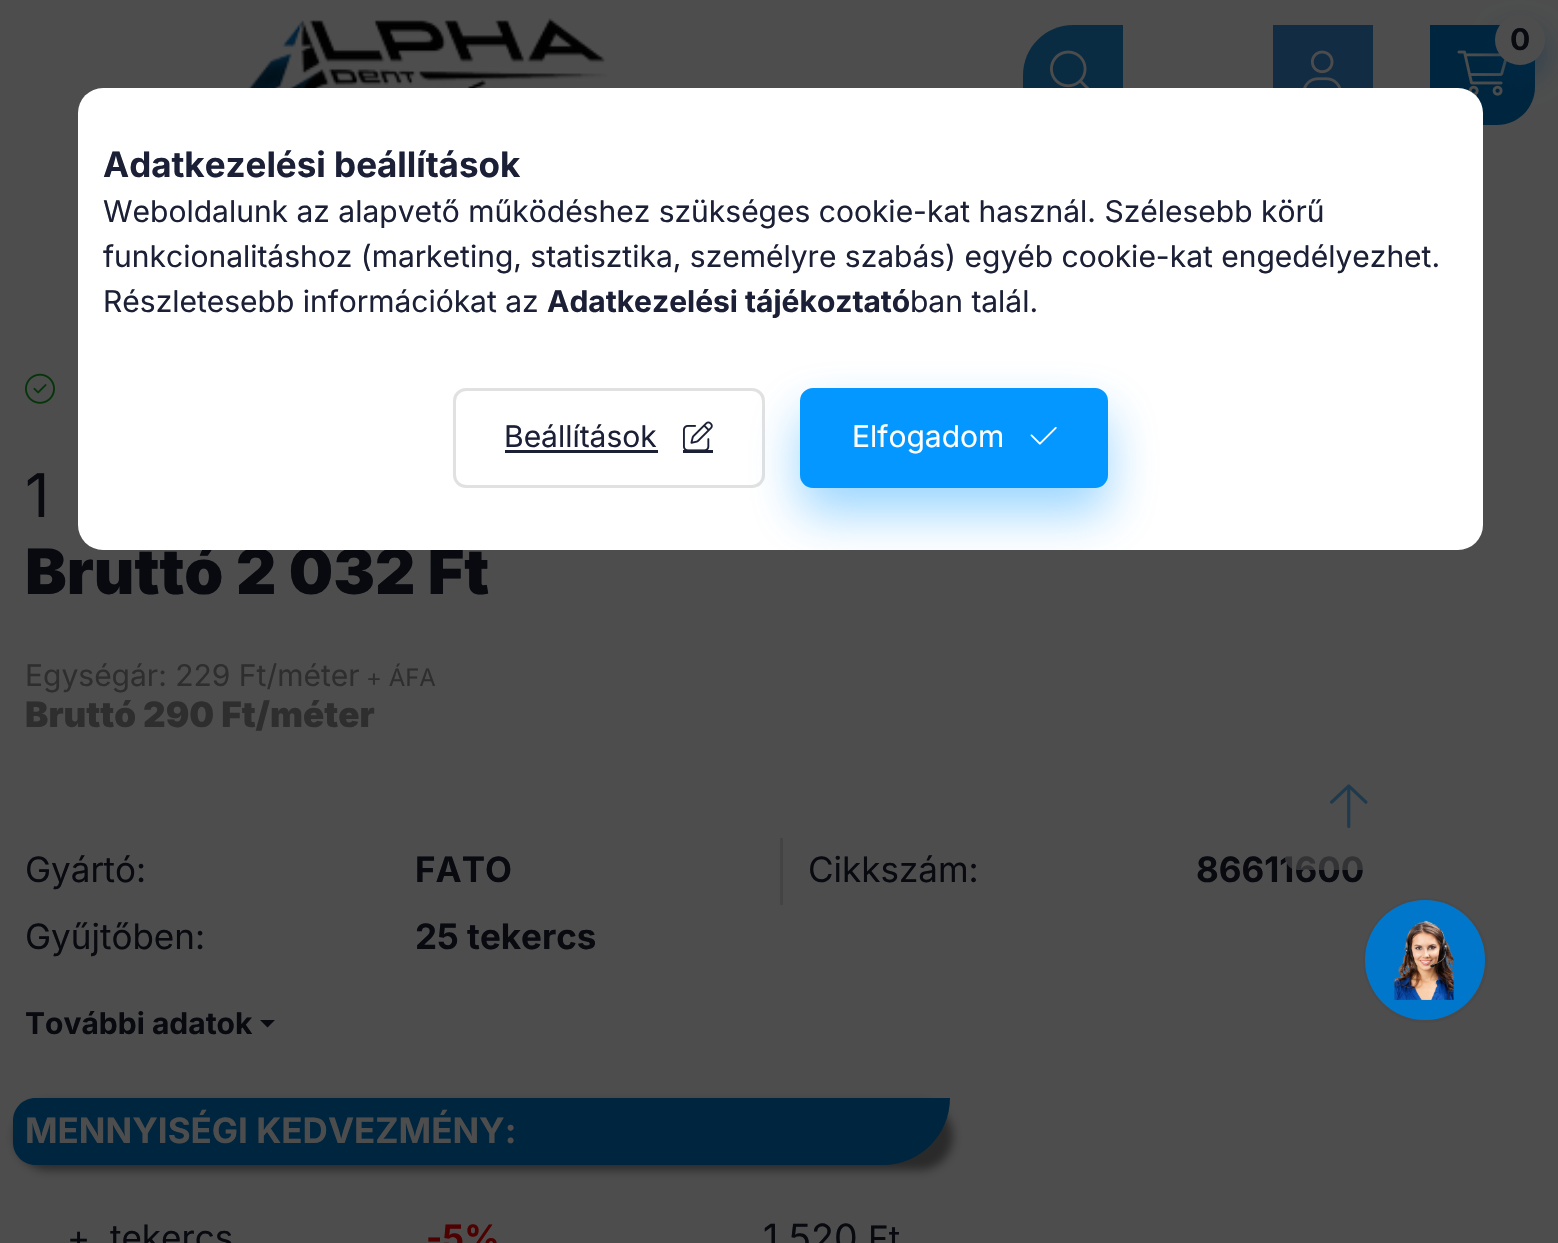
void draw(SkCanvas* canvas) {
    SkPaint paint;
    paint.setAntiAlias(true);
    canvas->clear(0xFF4D4D4D);
    canvas->drawImageRect(SkImages::DeferredFromEncodedData(SkData::MakeFromFileName("img1.png")), SkRect::MakeXYWH(248, 18, 360, 70), SkSamplingOptions());
    paint.setColor(0xFF092C43);
    canvas->drawPath(SkPathBuilder().moveTo(1073, 25).lineTo(1123, 25).lineTo(1123, 125).lineTo(1023, 125).lineTo(1023, 75).cubicTo(1023, 47.5f, 1045.5f, 25, 1073, 25).close().detach(), paint);
    canvas->drawImageRect(SkImages::DeferredFromEncodedData(SkData::MakeFromFileName("img2.png")), SkRect::MakeXYWH(1050, 50, 40, 38), SkSamplingOptions());
    paint.setColor(0xFF122C44);
    canvas->drawRect(SkRect::MakeXYWH(1273, 25, 100, 63), paint);
    canvas->drawImageRect(SkImages::DeferredFromEncodedData(SkData::MakeFromFileName("img3.png")), SkRect::MakeXYWH(1303, 50, 38, 38), SkSamplingOptions());
    paint.setColor(0xFF00253E);
    canvas->drawPath(SkPathBuilder().moveTo(1430, 25).lineTo(1535, 25).lineTo(1535, 87).cubicTo(1535, 108, 1518, 125, 1497, 125).lineTo(1430, 125).close().detach(), paint);
    canvas->drawImageRect(SkImages::DeferredFromEncodedData(SkData::MakeFromFileName("img4.png")), SkRect::MakeXYWH(1457, 50, 50, 46), SkSamplingOptions());
    paint.setColor(0x66012D4D);
    paint.setMaskFilter(SkMaskFilter::MakeBlur(kNormal_SkBlurStyle, 12.5f));
    canvas->drawRoundRect(SkRect::MakeXYWH(1495, 28, 50, 50), 25, 25, paint);
    paint.setMaskFilter(nullptr);
    paint.setColor(0xFF4D4D4D);
    canvas->drawCircle(1520, 40, 25, paint);
    SkFont font1(fontMgr->matchFamilyStyle("Inter", SkFontStyle::Bold()), 30);
    font1.setSubpixel(true);
    paint.setColor(0xFF080A10);
    canvas->drawString("0", 1510, 50, font1, paint);
    canvas->drawImageRect(SkImages::DeferredFromEncodedData(SkData::MakeFromFileName("img5.png")), SkRect::MakeXYWH(25, 373, 30, 31), SkSamplingOptions());
    SkFont font2(fontMgr->matchFamilyStyle("Inter", SkFontStyle::Normal()), 60);
    font2.setSubpixel(true);
    canvas->drawString("1", 25, 517, font2, paint);
    SkFont font3(fontMgr->matchFamilyStyle("Inter", SkFontStyle(900, SkFontStyle::kNormal_Width, SkFontStyle::kUpright_Slant)), 62.5f);
    font3.setSubpixel(true);
    canvas->drawString("Bruttó 2 032 Ft", 25, 594, font3, paint);
    SkFont font4(fontMgr->matchFamilyStyle("Inter", SkFontStyle::Normal()), 30);
    font4.setSubpixel(true);
    paint.setColor(0xFF2E2E2E);
    canvas->drawString("Egységár: 229 Ft/méter", 25, 686, font4, paint);
    SkFont font5(fontMgr->matchFamilyStyle("Inter", SkFontStyle::Normal()), 24);
    font5.setSubpixel(true);
    canvas->drawString("+ ÁFA", 366, 686, font5, paint);
    SkFont font6(fontMgr->matchFamilyStyle("Inter", SkFontStyle(900, SkFontStyle::kNormal_Width, SkFontStyle::kUpright_Slant)), 35);
    font6.setSubpixel(true);
    canvas->drawString("Bruttó 290 Ft/méter", 25, 727, font6, paint);
    SkFont font7(fontMgr->matchFamilyStyle("Inter", SkFontStyle::Normal()), 35);
    font7.setSubpixel(true);
    paint.setColor(0xFF080A10);
    canvas->drawString("Gyártó:", 25, 882, font7, paint);
    SkFont font8(fontMgr->matchFamilyStyle("Inter", SkFontStyle::Bold()), 35);
    font8.setSubpixel(true);
    canvas->drawString("FATO", 415, 882, font8, paint);
    paint.setColor(0xFF444444);
    canvas->drawRect(SkRect::MakeXYWH(780, 838, 3, 67), paint);
    paint.setColor(0xFF080A10);
    canvas->drawString("Cikkszám:", 808, 882, font7, paint);
    canvas->drawString("86611600", 1196, 882, font8, paint);
    canvas->drawString("Gyűjtőben:", 25, 949, font7, paint);
    canvas->drawString("25 tekercs", 415, 949, font8, paint);
    canvas->drawString("További adatok", 25, 1034, font1, paint);
    canvas->drawPath(SkPathBuilder().moveTo(260, 1020).lineTo(275, 1020).lineTo(267.5f, 1027.5f).close().detach(), paint);
    paint.setColor(0x75000000);
    paint.setMaskFilter(SkMaskFilter::MakeBlur(kNormal_SkBlurStyle, 5));
    canvas->drawRoundRect(SkRect::MakeXYWH(15, 1103, 938, 67), 68, 68, paint);
    paint.setMaskFilter(nullptr);
    paint.setColor(0xFF00253E);
    canvas->drawPath(SkPathBuilder().moveTo(35.5f, 1098).lineTo(950, 1098).cubicTo(950, 1135, 920, 1165, 883, 1165).lineTo(35.5f, 1165).cubicTo(23, 1165, 13, 1155, 13, 1142.5f).lineTo(13, 1120.5f).cubicTo(13, 1108, 23, 1098, 35.5f, 1098).close().detach(), paint);
    paint.setColor(0xFF4D4D4D);
    canvas->drawString("MENNYISÉGI KEDVEZMÉNY:", 25, 1143, font8, paint);
    paint.setColor(0xFF080A10);
    canvas->drawString("+", 67, 1250, font7, paint);
    canvas->drawString("tekercs", 110, 1250, font7, paint);
    paint.setColor(0xFF4D0101);
    canvas->drawString("-5%", 426, 1250, font8, paint);
    SkFont font9(fontMgr->matchFamilyStyle("Inter", SkFontStyle::Normal()), 37.5f);
    font9.setSubpixel(true);
    paint.setColor(0xFF080A10);
    canvas->drawString("1 520", 763, 1251, font9, paint);
    canvas->drawString("Ft", 868, 1251, font7, paint);
    paint.setColor(0xFFFFFFFF);
    canvas->drawRoundRect(SkRect::MakeXYWH(78, 88, 1405, 462), 25, 25, paint);
    paint.setColor(0xFF1B2036);
    canvas->drawString("Adatkezelési beállítások", 103, 177, font8, paint);
    canvas->drawString("Weboldalunk az alapvető működéshez szükséges cookie-kat használ. Szélesebb körű", 103, 222, font4, paint);
    canvas->drawString("funkcionalitáshoz (marketing, statisztika, személyre szabás) egyéb cookie-kat engedélyezhet.", 103, 267, font4, paint);
    canvas->drawString("Részletesebb információkat az", 103, 312, font4, paint);
    canvas->drawString("Adatkezelési tájékoztató", 547, 312, font1, paint);
    canvas->drawString("ban talál.", 910, 312, font4, paint);
    paint.setStyle(SkPaint::kStroke_Style);
    paint.setStrokeWidth(3);
    paint.setColor(0xFFE1E1E1);
    canvas->drawRoundRect(SkRect::MakeXYWH(454.5f, 389.5f, 309, 97), 11.5f, 11.5f, paint);
    paint.setStyle(SkPaint::kFill_Style);
    paint.setColor(0xFF1B2036);
    canvas->drawString("Beállítások", 504, 447, font4, paint);
    canvas->drawRect(SkRect::MakeXYWH(505, 450, 153, 3), paint);
    canvas->drawImageRect(SkImages::DeferredFromEncodedData(SkData::MakeFromFileName("img6.png")), SkRect::MakeXYWH(683, 421, 30, 29), SkSamplingOptions());
    canvas->drawRect(SkRect::MakeXYWH(683, 450, 30, 3), paint);
    canvas->save();
    canvas->clipPath(SkPathBuilder().moveTo(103, 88).lineTo(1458, 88).cubicTo(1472, 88, 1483, 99, 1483, 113).lineTo(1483, 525).cubicTo(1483, 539, 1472, 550, 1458, 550).lineTo(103, 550).cubicTo(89, 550, 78, 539, 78, 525).lineTo(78, 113).cubicTo(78, 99, 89, 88, 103, 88).close().detach(), true);
    paint.setColor(0x660397FF);
    paint.setMaskFilter(SkMaskFilter::MakeBlur(kNormal_SkBlurStyle, 25));
    canvas->drawRoundRect(SkRect::MakeXYWH(800, 413, 308, 100), 13, 13, paint);
    paint.setMaskFilter(nullptr);
    canvas->restore();
    paint.setColor(0xFF0397FF);
    canvas->drawRoundRect(SkRect::MakeXYWH(801.5f, 389.5f, 305, 97), 11.5f, 11.5f, paint);
    paint.setStyle(SkPaint::kStroke_Style);
    canvas->drawRoundRect(SkRect::MakeXYWH(801.5f, 389.5f, 305, 97), 11.5f, 11.5f, paint);
    paint.setStyle(SkPaint::kFill_Style);
    paint.setColor(0xFFFFFFFF);
    canvas->drawString("Elfogadom", 852, 447, font4, paint);
    canvas->drawImageRect(SkImages::DeferredFromEncodedData(SkData::MakeFromFileName("img7.png")), SkRect::MakeXYWH(1030, 426, 27, 19), SkSamplingOptions());
    paint.setColor(0x9C4D4D4D);
    canvas->drawRoundRect(SkRect::MakeXYWH(1285, 745, 125, 125), 13, 13, paint);
    canvas->drawImageRect(SkImages::DeferredFromEncodedData(SkData::MakeFromFileName("img8.png")), SkRect::MakeXYWH(1330, 784, 38, 45), SkSamplingOptions());
    paint.setStyle(SkPaint::kStroke_Style);
    paint.setColor(0xFF4A4A4B);
    canvas->drawCircle(1425.5f, 960.5f, 61, paint);
    paint.setStyle(SkPaint::kFill_Style);
    paint.setColor(0xFF0177CB);
    canvas->drawCircle(1425, 960, 60, paint);
    canvas->drawImageRect(SkImages::DeferredFromEncodedData(SkData::MakeFromFileName("img9.png")), SkRect::MakeXYWH(1394, 920, 60, 80), SkSamplingOptions());
}
